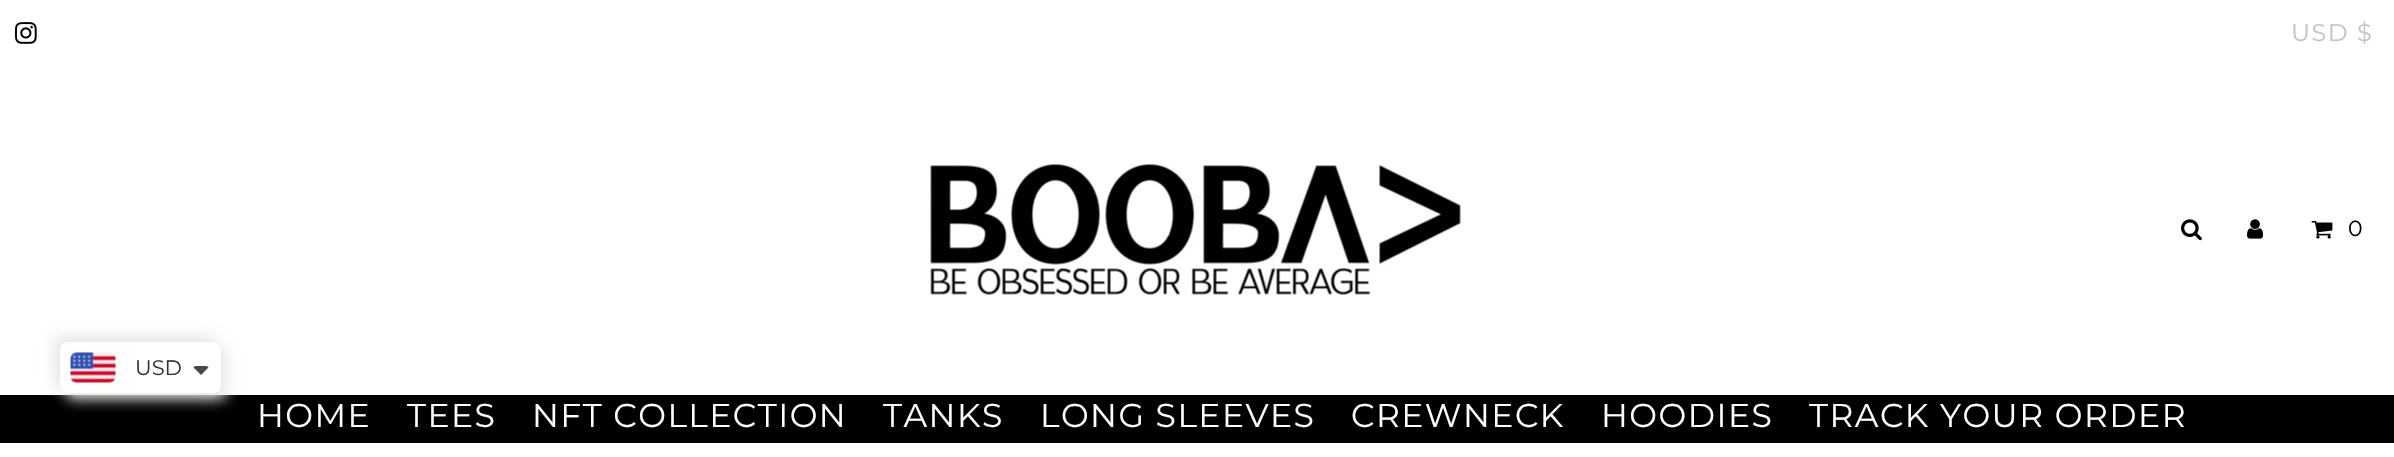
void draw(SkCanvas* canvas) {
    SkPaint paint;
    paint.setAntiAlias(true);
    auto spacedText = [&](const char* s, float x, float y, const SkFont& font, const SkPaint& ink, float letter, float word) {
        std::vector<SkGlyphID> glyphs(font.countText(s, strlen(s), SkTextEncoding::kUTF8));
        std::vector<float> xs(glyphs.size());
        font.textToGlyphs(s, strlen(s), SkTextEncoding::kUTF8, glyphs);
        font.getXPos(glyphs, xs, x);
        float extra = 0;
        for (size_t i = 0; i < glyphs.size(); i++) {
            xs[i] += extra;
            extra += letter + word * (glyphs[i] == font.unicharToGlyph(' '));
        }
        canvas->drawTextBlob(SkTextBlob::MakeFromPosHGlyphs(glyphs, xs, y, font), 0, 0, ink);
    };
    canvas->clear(0xFFFFFFFF);
    paint.setColor(0xFF000000);
    canvas->drawRect(SkRect::MakeXYWH(0, 395, 2394, 48), paint);
    paint.setColor(0xFFE8E8E2);
    paint.setMaskFilter(SkMaskFilter::MakeBlur(kNormal_SkBlurStyle, 7));
    canvas->drawRoundRect(SkRect::MakeXYWH(54, 336, 161, 51), 8, 8, paint);
    paint.setMaskFilter(nullptr);
    paint.setMaskFilter(SkMaskFilter::MakeBlur(kNormal_SkBlurStyle, 7));
    canvas->drawRoundRect(SkRect::MakeXYWH(66, 348, 161, 51), 8, 8, paint);
    paint.setMaskFilter(nullptr);
    paint.setColor(0xFFFFFFFF);
    canvas->drawRoundRect(SkRect::MakeXYWH(60, 342, 161, 51), 8, 8, paint);
    canvas->drawImageRect(SkImages::DeferredFromEncodedData(SkData::MakeFromFileName("img1.png")), SkRect::MakeXYWH(70, 352, 46, 31), SkSamplingOptions());
    SkFont font1(fontMgr->matchFamilyStyle("Montserrat", SkFontStyle::Normal()), 21);
    font1.setSubpixel(true);
    paint.setColor(0xFF333333);
    canvas->drawString("USD", 135, 375, font1, paint);
    paint.setColor(0xFF474942);
    canvas->drawPath(SkPathBuilder().moveTo(196.5f, 366).cubicTo(195, 366, 194, 366.5f, 193.5f, 367.5f).lineTo(201, 375).lineTo(208.5f, 367.5f).cubicTo(208, 366.5f, 207, 366, 205.5f, 366).close().detach(), paint);
    canvas->drawImageRect(SkImages::DeferredFromEncodedData(SkData::MakeFromFileName("img2.png")), SkRect::MakeXYWH(15, 22, 22, 22), SkSamplingOptions());
    SkFont font2(fontMgr->matchFamilyStyle("Montserrat", SkFontStyle::Normal()), 24);
    font2.setSubpixel(true);
    paint.setColor(0xFFC6C3C3);
    spacedText("USD $", 2291, 41, font2, paint, 1.5f, 0);
    canvas->drawImageRect(SkImages::DeferredFromEncodedData(SkData::MakeFromFileName("img3.png")), SkRect::MakeXYWH(928, 163, 533, 132), SkSamplingOptions());
    canvas->drawImageRect(SkImages::DeferredFromEncodedData(SkData::MakeFromFileName("img4.png")), SkRect::MakeXYWH(2181, 219, 21, 22), SkSamplingOptions());
    canvas->drawImageRect(SkImages::DeferredFromEncodedData(SkData::MakeFromFileName("img5.png")), SkRect::MakeXYWH(2247, 219, 17, 20), SkSamplingOptions());
    canvas->drawImageRect(SkImages::DeferredFromEncodedData(SkData::MakeFromFileName("img6.png")), SkRect::MakeXYWH(2311, 220, 22, 19), SkSamplingOptions());
    SkFont font3(fontMgr->matchFamilyStyle("Montserrat", SkFontStyle::Normal()), 22);
    font3.setSubpixel(true);
    paint.setColor(0xFF000000);
    spacedText("0", 2348, 236, font3, paint, 1.5f, 0);
    SkFont font4(fontMgr->matchFamilyStyle("Montserrat", SkFontStyle::Normal()), 33);
    font4.setSubpixel(true);
    paint.setColor(0xFFFFFFFF);
    spacedText("HOME", 257, 427, font4, paint, 1.5f, 0);
    spacedText("TEES", 407, 427, font4, paint, 1.5f, 0);
    spacedText("NFT COLLECTION", 532, 427, font4, paint, 1.5f, 0);
    spacedText("TANKS", 883, 427, font4, paint, 1.5f, 0);
    spacedText("LONG SLEEVES", 1040, 427, font4, paint, 1.5f, 0);
    spacedText("CREWNECK", 1351, 427, font4, paint, 1.5f, 0);
    spacedText("HOODIES", 1601, 427, font4, paint, 1.5f, 0);
    spacedText("TRACK YOUR ORDER", 1809, 427, font4, paint, 1.5f, 0);
}
